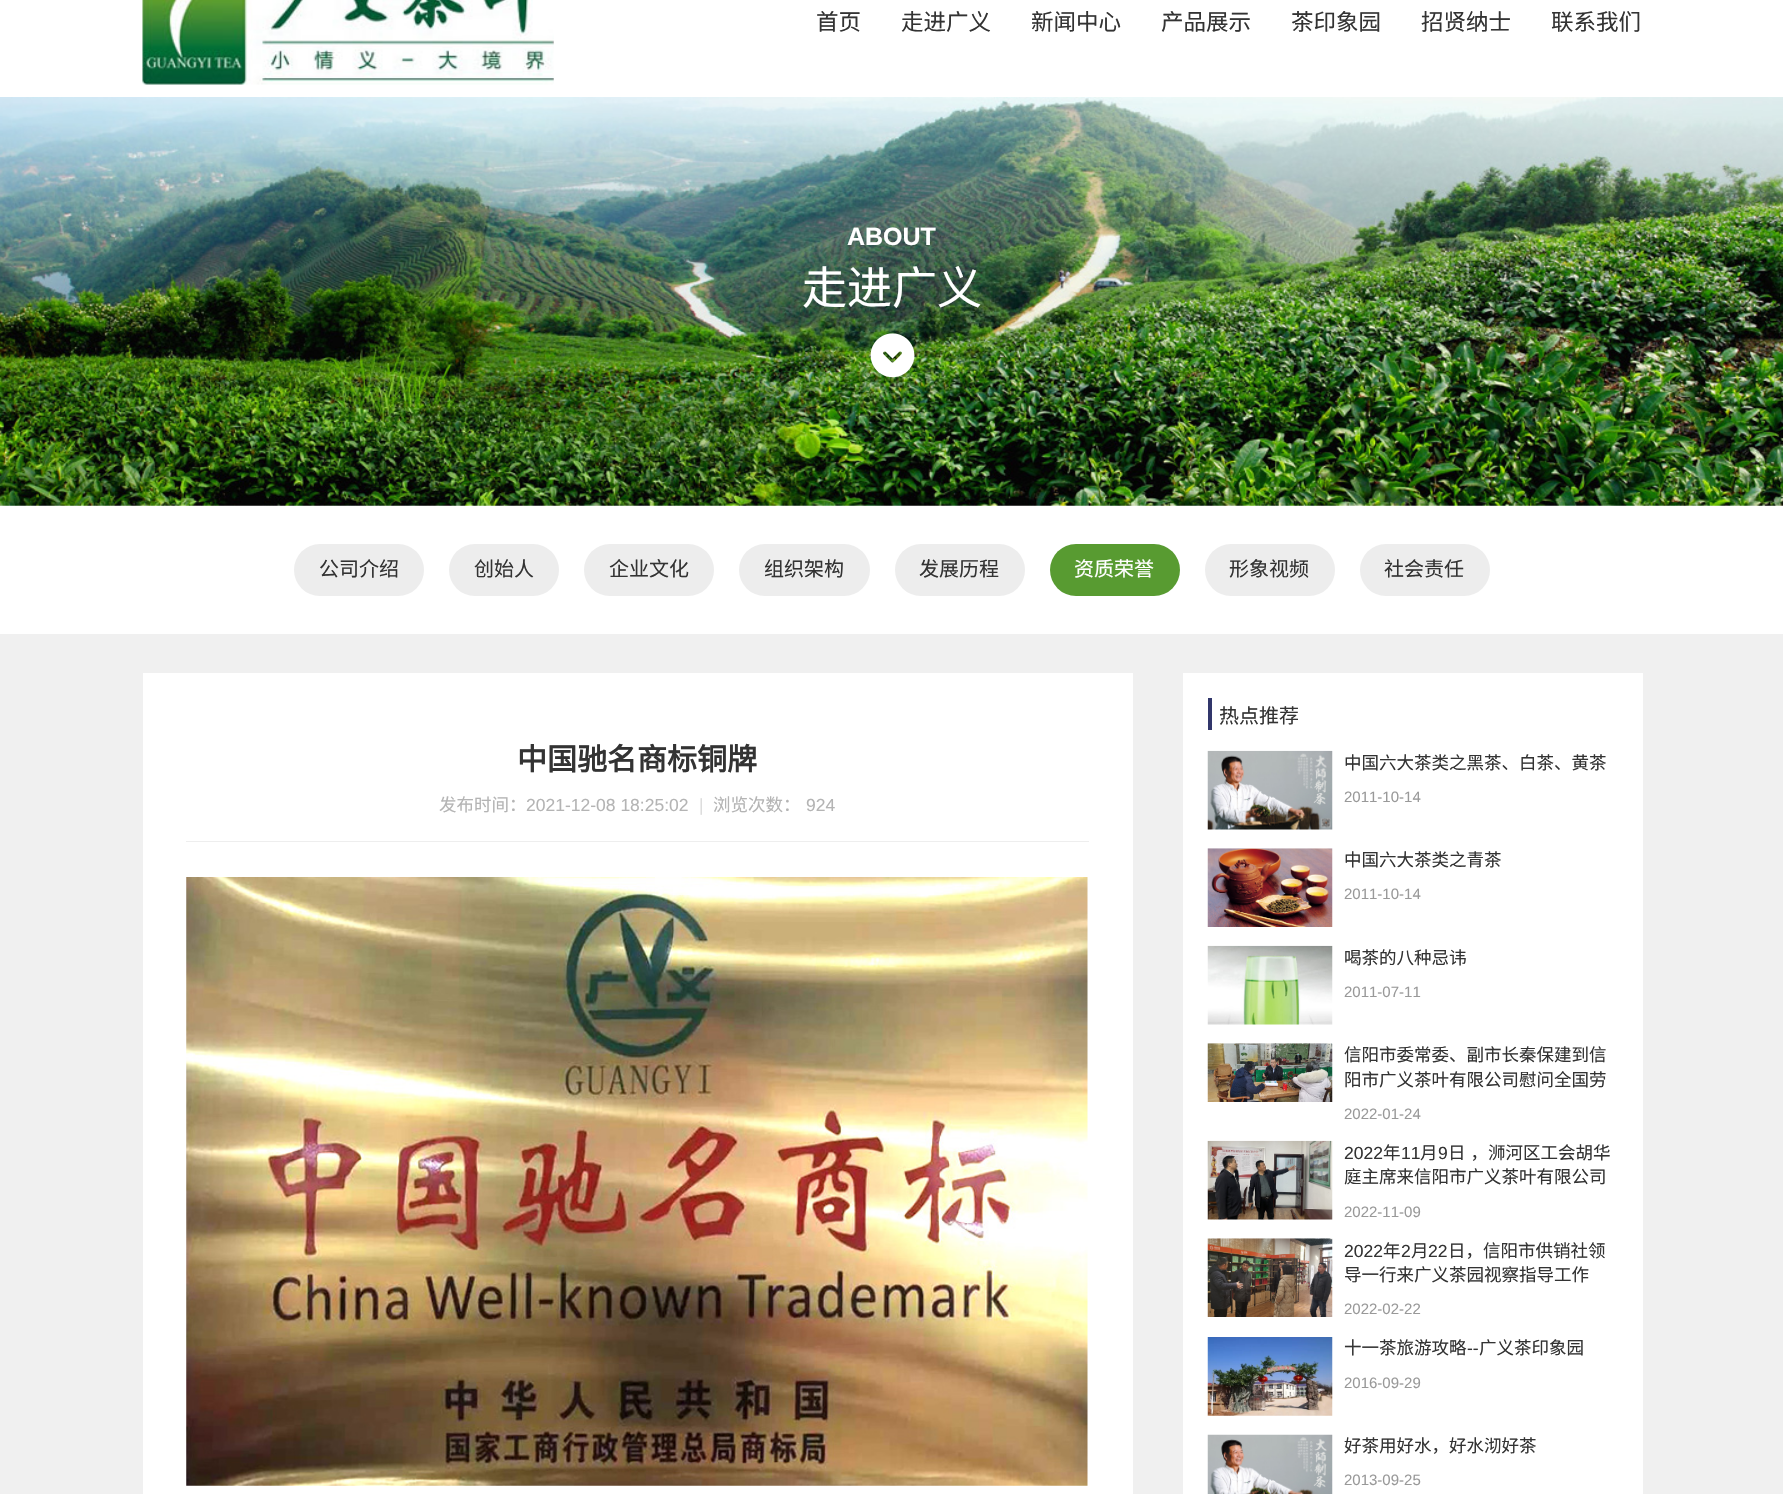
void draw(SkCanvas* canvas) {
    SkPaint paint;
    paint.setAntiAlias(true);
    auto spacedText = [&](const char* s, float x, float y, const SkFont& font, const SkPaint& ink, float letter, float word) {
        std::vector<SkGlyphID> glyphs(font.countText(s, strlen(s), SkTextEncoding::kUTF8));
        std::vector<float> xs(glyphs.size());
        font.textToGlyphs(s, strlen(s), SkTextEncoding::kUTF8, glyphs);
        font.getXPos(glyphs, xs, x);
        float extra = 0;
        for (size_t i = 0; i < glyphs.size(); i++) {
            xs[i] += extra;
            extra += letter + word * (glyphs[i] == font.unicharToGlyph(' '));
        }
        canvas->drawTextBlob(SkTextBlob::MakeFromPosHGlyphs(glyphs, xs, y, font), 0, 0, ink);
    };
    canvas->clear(0xFFFFFFFF);
    canvas->drawImageRect(SkImages::DeferredFromEncodedData(SkData::MakeFromFileName("img1.png")), SkRect::MakeXYWH(142, 0, 412, 85), SkSamplingOptions());
    SkFont font1(fontMgr->matchFamilyStyle("Noto Sans CJK SC", SkFontStyle::Normal()), 22.5f);
    font1.setSubpixel(true);
    paint.setColor(0xFF333333);
    canvas->drawString("首页", 816, 30, font1, paint);
    canvas->drawString("走进广义", 901, 30, font1, paint);
    canvas->drawString("新闻中心", 1031, 30, font1, paint);
    canvas->drawString("产品展示", 1161, 30, font1, paint);
    canvas->drawString("茶印象园", 1291, 30, font1, paint);
    canvas->drawString("招贤纳士", 1421, 30, font1, paint);
    canvas->drawString("联系我们", 1551, 30, font1, paint);
    canvas->drawImageRect(SkImages::DeferredFromEncodedData(SkData::MakeFromFileName("img2.png")), SkRect::MakeXYWH(0, 97, 1783, 409), SkSamplingOptions());
    SkFont font2(fontMgr->matchFamilyStyle("Liberation Sans", SkFontStyle::Bold()), 25);
    font2.setSubpixel(true);
    paint.setColor(0xFFFFFFFF);
    canvas->drawString("ABOUT", 847, 245, font2, paint);
    SkFont font3(fontMgr->matchFamilyStyle("Noto Sans CJK SC", SkFontStyle::Normal()), 45);
    font3.setSubpixel(true);
    canvas->drawString("走进广义", 802, 304, font3, paint);
    canvas->drawImageRect(SkImages::DeferredFromEncodedData(SkData::MakeFromFileName("img3.png")), SkRect::MakeXYWH(870, 333, 45, 45), SkSamplingOptions());
    paint.setColor(0xFFF0F0F0);
    canvas->drawRect(SkRect::MakeXYWH(0, 634, 1783, 860), paint);
    paint.setColor(0xFFEDEDED);
    canvas->drawRoundRect(SkRect::MakeXYWH(294, 544, 130, 52), 26, 26, paint);
    SkFont font4(fontMgr->matchFamilyStyle("Noto Sans CJK SC", SkFontStyle::Normal()), 20);
    font4.setSubpixel(true);
    paint.setColor(0xFF333333);
    canvas->drawString("公司介绍", 319, 576, font4, paint);
    paint.setColor(0xFFEDEDED);
    canvas->drawRoundRect(SkRect::MakeXYWH(449, 544, 110, 52), 26, 26, paint);
    paint.setColor(0xFF333333);
    canvas->drawString("创始人", 474, 576, font4, paint);
    paint.setColor(0xFFEDEDED);
    canvas->drawRoundRect(SkRect::MakeXYWH(584, 544, 130, 52), 26, 26, paint);
    paint.setColor(0xFF333333);
    canvas->drawString("企业文化", 609, 576, font4, paint);
    paint.setColor(0xFFEDEDED);
    canvas->drawRoundRect(SkRect::MakeXYWH(739, 544, 131, 52), 26, 26, paint);
    paint.setColor(0xFF333333);
    canvas->drawString("组织架构", 764, 576, font4, paint);
    paint.setColor(0xFFEDEDED);
    canvas->drawRoundRect(SkRect::MakeXYWH(895, 544, 130, 52), 26, 26, paint);
    paint.setColor(0xFF333333);
    canvas->drawString("发展历程", 919, 576, font4, paint);
    paint.setColor(0xFF589B31);
    canvas->drawRoundRect(SkRect::MakeXYWH(1050, 544, 130, 52), 26, 26, paint);
    paint.setColor(0xFFFFFFFF);
    canvas->drawString("资质荣誉", 1074, 576, font4, paint);
    paint.setColor(0xFFEDEDED);
    canvas->drawRoundRect(SkRect::MakeXYWH(1205, 544, 130, 52), 26, 26, paint);
    paint.setColor(0xFF333333);
    canvas->drawString("形象视频", 1229, 576, font4, paint);
    paint.setColor(0xFFEDEDED);
    canvas->drawRoundRect(SkRect::MakeXYWH(1360, 544, 130, 52), 26, 26, paint);
    paint.setColor(0xFF333333);
    canvas->drawString("社会责任", 1384, 576, font4, paint);
    paint.setColor(0xFFFFFFFF);
    canvas->drawRect(SkRect::MakeXYWH(143, 673, 990, 821), paint);
    SkFont font5(fontMgr->matchFamilyStyle("Noto Sans CJK SC", SkFontStyle::Bold()), 30);
    font5.setSubpixel(true);
    paint.setColor(0xFF333333);
    canvas->drawString("中国驰名商标铜牌", 517, 770, font5, paint);
    paint.setColor(0xFFEEEEEE);
    canvas->drawRect(SkRect::MakeXYWH(186, 841, 903, 1), paint);
    SkFont font6(fontMgr->matchFamilyStyle("Noto Sans CJK SC", SkFontStyle::Normal()), 17.5f);
    font6.setSubpixel(true);
    paint.setColor(0xFFB4B4B4);
    canvas->drawString("发布时间：", 439, 811, font6, paint);
    SkFont font7(fontMgr->matchFamilyStyle("Liberation Sans", SkFontStyle::Normal()), 17.5f);
    font7.setSubpixel(true);
    canvas->drawString("2021-12-08 18:25:02", 526, 811, font7, paint);
    paint.setColor(0xFFDDDDDD);
    canvas->drawString("|", 699, 811, font7, paint);
    paint.setColor(0xFFB4B4B4);
    canvas->drawString("浏览次数：", 713, 811, font6, paint);
    canvas->drawString("924", 806, 811, font7, paint);
    canvas->drawImageRect(SkImages::DeferredFromEncodedData(SkData::MakeFromFileName("img4.png")), SkRect::MakeXYWH(186, 877, 902, 609), SkSamplingOptions());
    paint.setColor(0xFFFFFFFF);
    canvas->drawRect(SkRect::MakeXYWH(1183, 673, 460, 821), paint);
    paint.setColor(0xFF31366B);
    canvas->drawRect(SkRect::MakeXYWH(1208, 698, 4, 32), paint);
    paint.setColor(0xFF333333);
    canvas->drawString("热点推荐", 1219, 723, font4, paint);
    canvas->drawImageRect(SkImages::DeferredFromEncodedData(SkData::MakeFromFileName("img5.png")), SkRect::MakeXYWH(1207, 750, 126, 80), SkSamplingOptions());
    canvas->drawString("中国六大茶类之黑茶、白茶、黄茶", 1344, 769, font6, paint);
    SkFont font8(fontMgr->matchFamilyStyle("Liberation Sans", SkFontStyle::Normal()), 15);
    font8.setSubpixel(true);
    paint.setColor(0xFF999999);
    canvas->drawString("2011-10-14", 1344, 802, font8, paint);
    canvas->drawImageRect(SkImages::DeferredFromEncodedData(SkData::MakeFromFileName("img6.png")), SkRect::MakeXYWH(1207, 848, 126, 79), SkSamplingOptions());
    paint.setColor(0xFF333333);
    canvas->drawString("中国六大茶类之青茶", 1344, 866, font6, paint);
    paint.setColor(0xFF999999);
    canvas->drawString("2011-10-14", 1344, 899, font8, paint);
    canvas->drawImageRect(SkImages::DeferredFromEncodedData(SkData::MakeFromFileName("img7.png")), SkRect::MakeXYWH(1207, 945, 126, 80), SkSamplingOptions());
    paint.setColor(0xFF333333);
    canvas->drawString("喝茶的八种忌讳", 1344, 964, font6, paint);
    paint.setColor(0xFF999999);
    canvas->drawString("2011-07-11", 1344, 997, font8, paint);
    canvas->drawImageRect(SkImages::DeferredFromEncodedData(SkData::MakeFromFileName("img8.png")), SkRect::MakeXYWH(1207, 1043, 126, 59), SkSamplingOptions());
    paint.setColor(0xFF333333);
    canvas->drawString("信阳市委常委、副市长秦保建到信", 1344, 1061, font6, paint);
    canvas->drawString("阳市广义茶叶有限公司慰问全国劳", 1344, 1086, font6, paint);
    paint.setColor(0xFF999999);
    canvas->drawString("2022-01-24", 1344, 1119, font8, paint);
    canvas->drawImageRect(SkImages::DeferredFromEncodedData(SkData::MakeFromFileName("img9.png")), SkRect::MakeXYWH(1207, 1140, 126, 80), SkSamplingOptions());
    paint.setColor(0xFF333333);
    canvas->drawString("2022", 1344, 1159, font7, paint);
    canvas->drawString("年", 1383, 1159, font6, paint);
    canvas->drawString("11", 1401, 1159, font7, paint);
    canvas->drawString("月", 1420, 1159, font6, paint);
    canvas->drawString("9", 1438, 1159, font7, paint);
    spacedText("日 ，浉河区工会胡华", 1448, 1159, font6, paint, 0, 1);
    canvas->drawString("庭主席来信阳市广义茶叶有限公司", 1344, 1183, font6, paint);
    paint.setColor(0xFF999999);
    canvas->drawString("2022-11-09", 1344, 1217, font8, paint);
    canvas->drawImageRect(SkImages::DeferredFromEncodedData(SkData::MakeFromFileName("img10.png")), SkRect::MakeXYWH(1207, 1238, 126, 79), SkSamplingOptions());
    paint.setColor(0xFF333333);
    canvas->drawString("2022", 1344, 1257, font7, paint);
    canvas->drawString("年", 1383, 1257, font6, paint);
    canvas->drawString("2", 1401, 1257, font7, paint);
    canvas->drawString("月", 1411, 1257, font6, paint);
    canvas->drawString("22", 1428, 1257, font7, paint);
    canvas->drawString("日，信阳市供销社领", 1448, 1257, font6, paint);
    canvas->drawString("导一行来广义茶园视察指导工作", 1344, 1281, font6, paint);
    paint.setColor(0xFF999999);
    canvas->drawString("2022-02-22", 1344, 1314, font8, paint);
    canvas->drawImageRect(SkImages::DeferredFromEncodedData(SkData::MakeFromFileName("img11.png")), SkRect::MakeXYWH(1207, 1337, 126, 79), SkSamplingOptions());
    paint.setColor(0xFF333333);
    canvas->drawString("十一茶旅游攻略", 1344, 1354, font6, paint);
    canvas->drawString("--", 1467, 1354, font7, paint);
    canvas->drawString("广义茶印象园", 1479, 1354, font6, paint);
    paint.setColor(0xFF999999);
    canvas->drawString("2016-09-29", 1344, 1388, font8, paint);
    canvas->drawImageRect(SkImages::DeferredFromEncodedData(SkData::MakeFromFileName("img12.png")), SkRect::MakeXYWH(1207, 1434, 126, 60), SkSamplingOptions());
    paint.setColor(0xFF333333);
    canvas->drawString("好茶用好水，好水沏好茶", 1344, 1452, font6, paint);
    paint.setColor(0xFF999999);
    canvas->drawString("2013-09-25", 1344, 1485, font8, paint);
}
